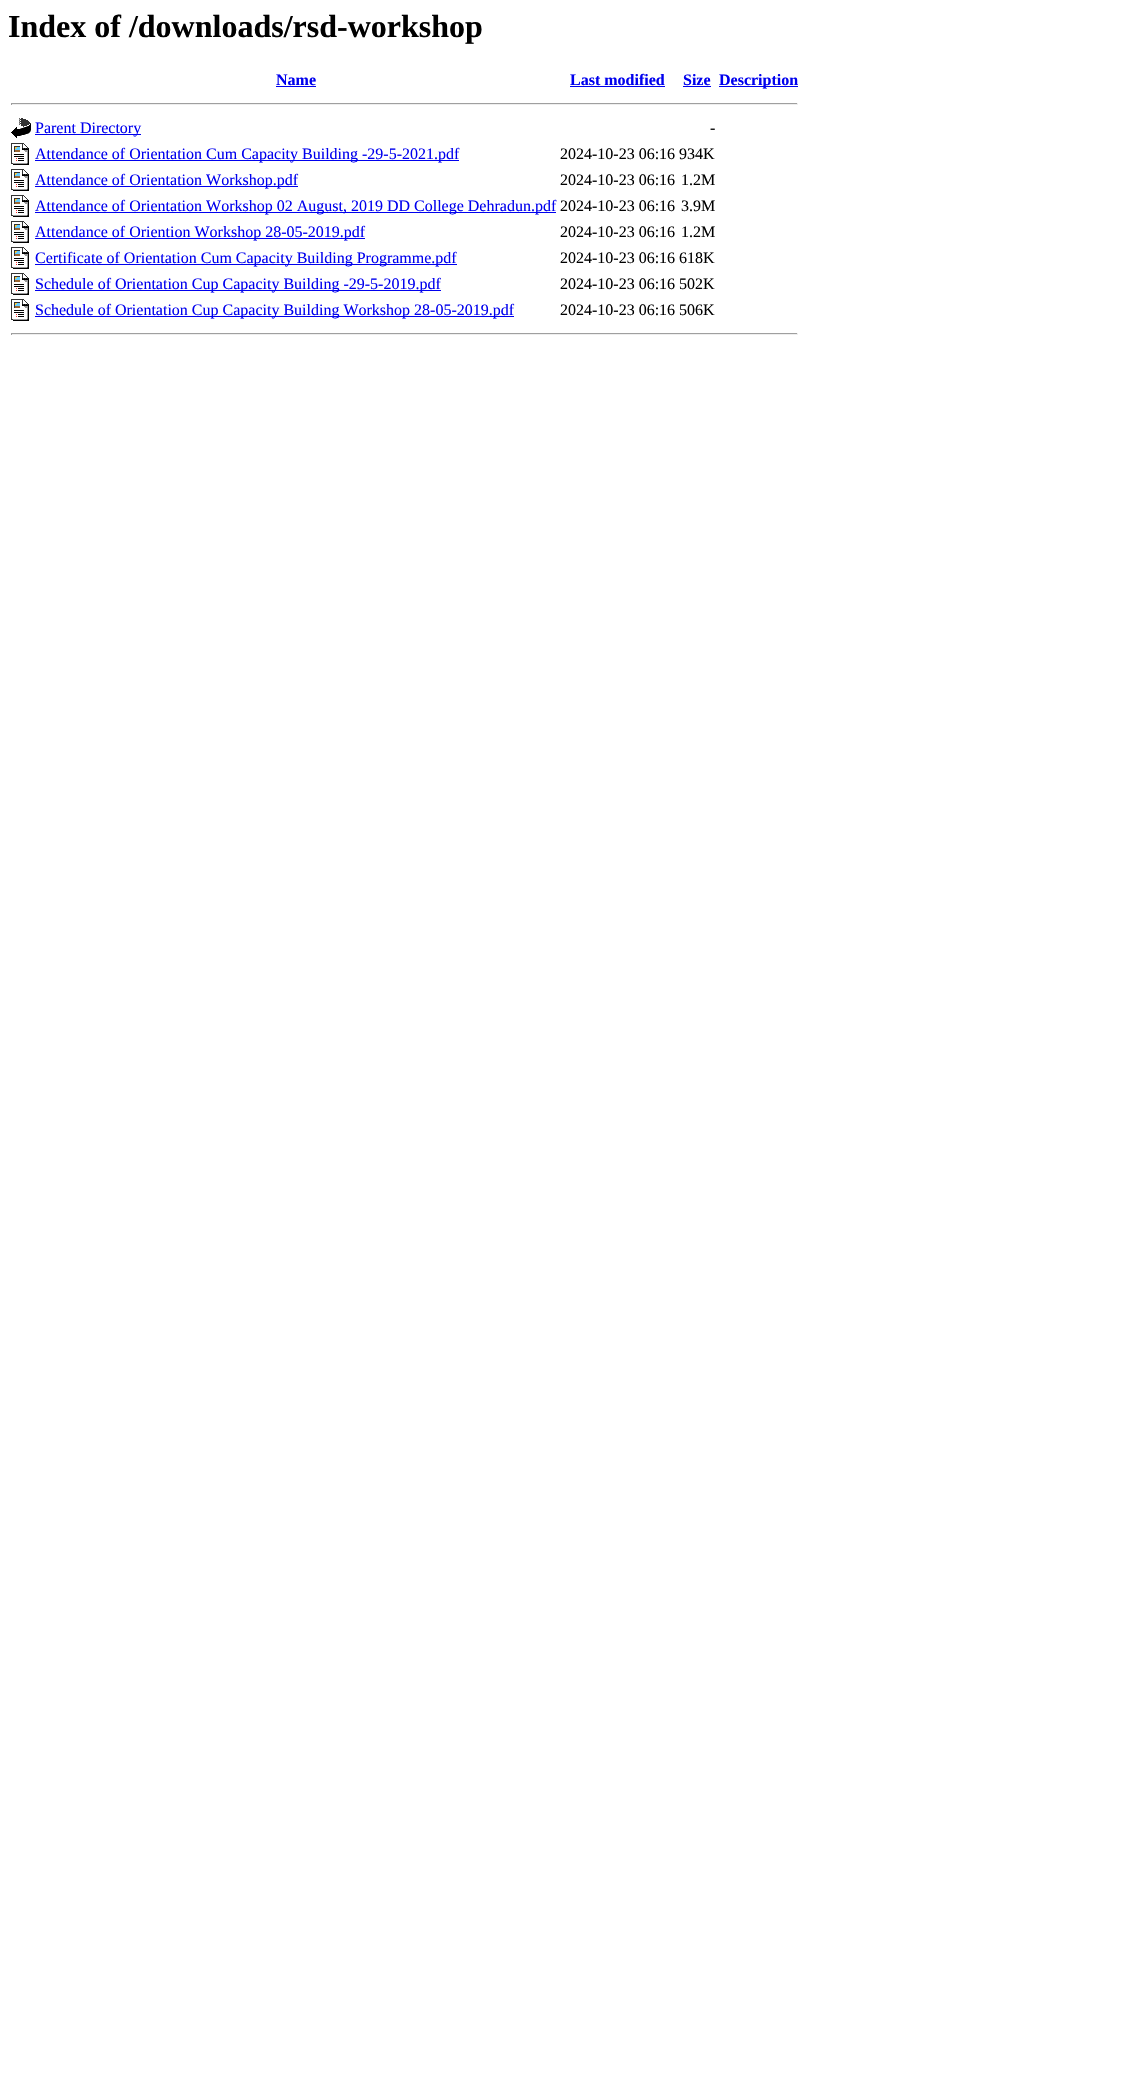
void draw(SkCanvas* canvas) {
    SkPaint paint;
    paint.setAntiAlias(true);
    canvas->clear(0xFFFFFFFF);
    SkFont font1(fontMgr->matchFamilyStyle("Liberation Serif", SkFontStyle::Bold()), 32);
    font1.setSubpixel(true);
    paint.setColor(0xFF000000);
    canvas->drawString("Index of /downloads/rsd-workshop", 8, 37, font1, paint);
    SkFont font2(fontMgr->matchFamilyStyle("Liberation Serif", SkFontStyle::Bold()), 16);
    font2.setSubpixel(true);
    paint.setColor(0xFF0000EE);
    canvas->drawString("Name", 276, 85, font2, paint);
    canvas->drawRect(SkRect::MakeXYWH(276, 86, 40, 1), paint);
    canvas->drawString("Last modified", 570, 85, font2, paint);
    canvas->drawRect(SkRect::MakeXYWH(570, 86, 95, 1), paint);
    canvas->drawString("Size", 683, 85, font2, paint);
    canvas->drawRect(SkRect::MakeXYWH(683, 86, 28, 1), paint);
    canvas->drawRect(SkRect::MakeXYWH(719, 86, 79, 1), paint);
    canvas->drawString("Description", 719, 85, font2, paint);
    paint.setColor(0xFF9F9F9F);
    canvas->drawRect(SkRect::MakeXYWH(11, 103, 787, 1), paint);
    paint.setColor(0xFFEEEEEE);
    canvas->drawRect(SkRect::MakeXYWH(797, 103, 1, 2), paint);
    canvas->drawRect(SkRect::MakeXYWH(11, 104, 787, 1), paint);
    paint.setColor(0xFF9F9F9F);
    canvas->drawRect(SkRect::MakeXYWH(11, 103, 1, 2), paint);
    canvas->drawImageRect(SkImages::DeferredFromEncodedData(SkData::MakeFromFileName("img1.png")), SkRect::MakeXYWH(11, 118, 20, 20), SkSamplingOptions());
    paint.setColor(0xFF0000EE);
    canvas->drawRect(SkRect::MakeXYWH(35, 134, 106, 1), paint);
    SkFont font3(fontMgr->matchFamilyStyle("Liberation Serif", SkFontStyle::Normal()), 16);
    font3.setSubpixel(true);
    canvas->drawString("Parent Directory", 35, 133, font3, paint);
    paint.setColor(0xFF000000);
    canvas->drawString("-", 710, 133, font3, paint);
    canvas->drawImageRect(SkImages::DeferredFromEncodedData(SkData::MakeFromFileName("img2.png")), SkRect::MakeXYWH(11, 143, 18, 22), SkSamplingOptions());
    paint.setColor(0xFF0000EE);
    canvas->drawRect(SkRect::MakeXYWH(35, 160, 424, 1), paint);
    canvas->drawString("Attendance of Orientation Cum Capacity Building -29-5-2021.pdf", 35, 159, font3, paint);
    paint.setColor(0xFF000000);
    canvas->drawString("2024-10-23 06:16 934K", 560, 159, font3, paint);
    canvas->drawImageRect(SkImages::DeferredFromEncodedData(SkData::MakeFromFileName("img2.png")), SkRect::MakeXYWH(11, 169, 18, 22), SkSamplingOptions());
    paint.setColor(0xFF0000EE);
    canvas->drawRect(SkRect::MakeXYWH(35, 186, 263, 1), paint);
    canvas->drawString("Attendance of Orientation Workshop.pdf", 35, 185, font3, paint);
    paint.setColor(0xFF000000);
    canvas->drawString("2024-10-23 06:16", 560, 185, font3, paint);
    canvas->drawString("1.2M", 681, 185, font3, paint);
    canvas->drawImageRect(SkImages::DeferredFromEncodedData(SkData::MakeFromFileName("img2.png")), SkRect::MakeXYWH(11, 195, 18, 22), SkSamplingOptions());
    paint.setColor(0xFF0000EE);
    canvas->drawRect(SkRect::MakeXYWH(35, 212, 521, 1), paint);
    canvas->drawString("Attendance of Orientation Workshop 02 August, 2019 DD College Dehradun.pdf", 35, 211, font3, paint);
    paint.setColor(0xFF000000);
    canvas->drawString("2024-10-23 06:16", 560, 211, font3, paint);
    canvas->drawString("3.9M", 681, 211, font3, paint);
    canvas->drawImageRect(SkImages::DeferredFromEncodedData(SkData::MakeFromFileName("img2.png")), SkRect::MakeXYWH(11, 221, 18, 22), SkSamplingOptions());
    paint.setColor(0xFF0000EE);
    canvas->drawRect(SkRect::MakeXYWH(35, 238, 330, 1), paint);
    canvas->drawString("Attendance of Oriention Workshop 28-05-2019.pdf", 35, 237, font3, paint);
    paint.setColor(0xFF000000);
    canvas->drawString("2024-10-23 06:16", 560, 237, font3, paint);
    canvas->drawString("1.2M", 681, 237, font3, paint);
    canvas->drawImageRect(SkImages::DeferredFromEncodedData(SkData::MakeFromFileName("img2.png")), SkRect::MakeXYWH(11, 247, 18, 22), SkSamplingOptions());
    paint.setColor(0xFF0000EE);
    canvas->drawRect(SkRect::MakeXYWH(35, 264, 422, 1), paint);
    canvas->drawString("Certificate of Orientation Cum Capacity Building Programme.pdf", 35, 263, font3, paint);
    paint.setColor(0xFF000000);
    canvas->drawString("2024-10-23 06:16 618K", 560, 263, font3, paint);
    canvas->drawImageRect(SkImages::DeferredFromEncodedData(SkData::MakeFromFileName("img2.png")), SkRect::MakeXYWH(11, 273, 18, 22), SkSamplingOptions());
    paint.setColor(0xFF0000EE);
    canvas->drawRect(SkRect::MakeXYWH(35, 290, 406, 1), paint);
    canvas->drawString("Schedule of Orientation Cup Capacity Building -29-5-2019.pdf", 35, 289, font3, paint);
    paint.setColor(0xFF000000);
    canvas->drawString("2024-10-23 06:16 502K", 560, 289, font3, paint);
    canvas->drawImageRect(SkImages::DeferredFromEncodedData(SkData::MakeFromFileName("img2.png")), SkRect::MakeXYWH(11, 299, 18, 22), SkSamplingOptions());
    paint.setColor(0xFF0000EE);
    canvas->drawRect(SkRect::MakeXYWH(35, 316, 479, 1), paint);
    canvas->drawString("Schedule of Orientation Cup Capacity Building Workshop 28-05-2019.pdf", 35, 315, font3, paint);
    paint.setColor(0xFF000000);
    canvas->drawString("2024-10-23 06:16 506K", 560, 315, font3, paint);
    paint.setColor(0xFF9F9F9F);
    canvas->drawRect(SkRect::MakeXYWH(11, 333, 787, 1), paint);
    paint.setColor(0xFFEEEEEE);
    canvas->drawRect(SkRect::MakeXYWH(797, 333, 1, 2), paint);
    canvas->drawRect(SkRect::MakeXYWH(11, 334, 787, 1), paint);
    paint.setColor(0xFF9F9F9F);
    canvas->drawRect(SkRect::MakeXYWH(11, 333, 1, 2), paint);
}
